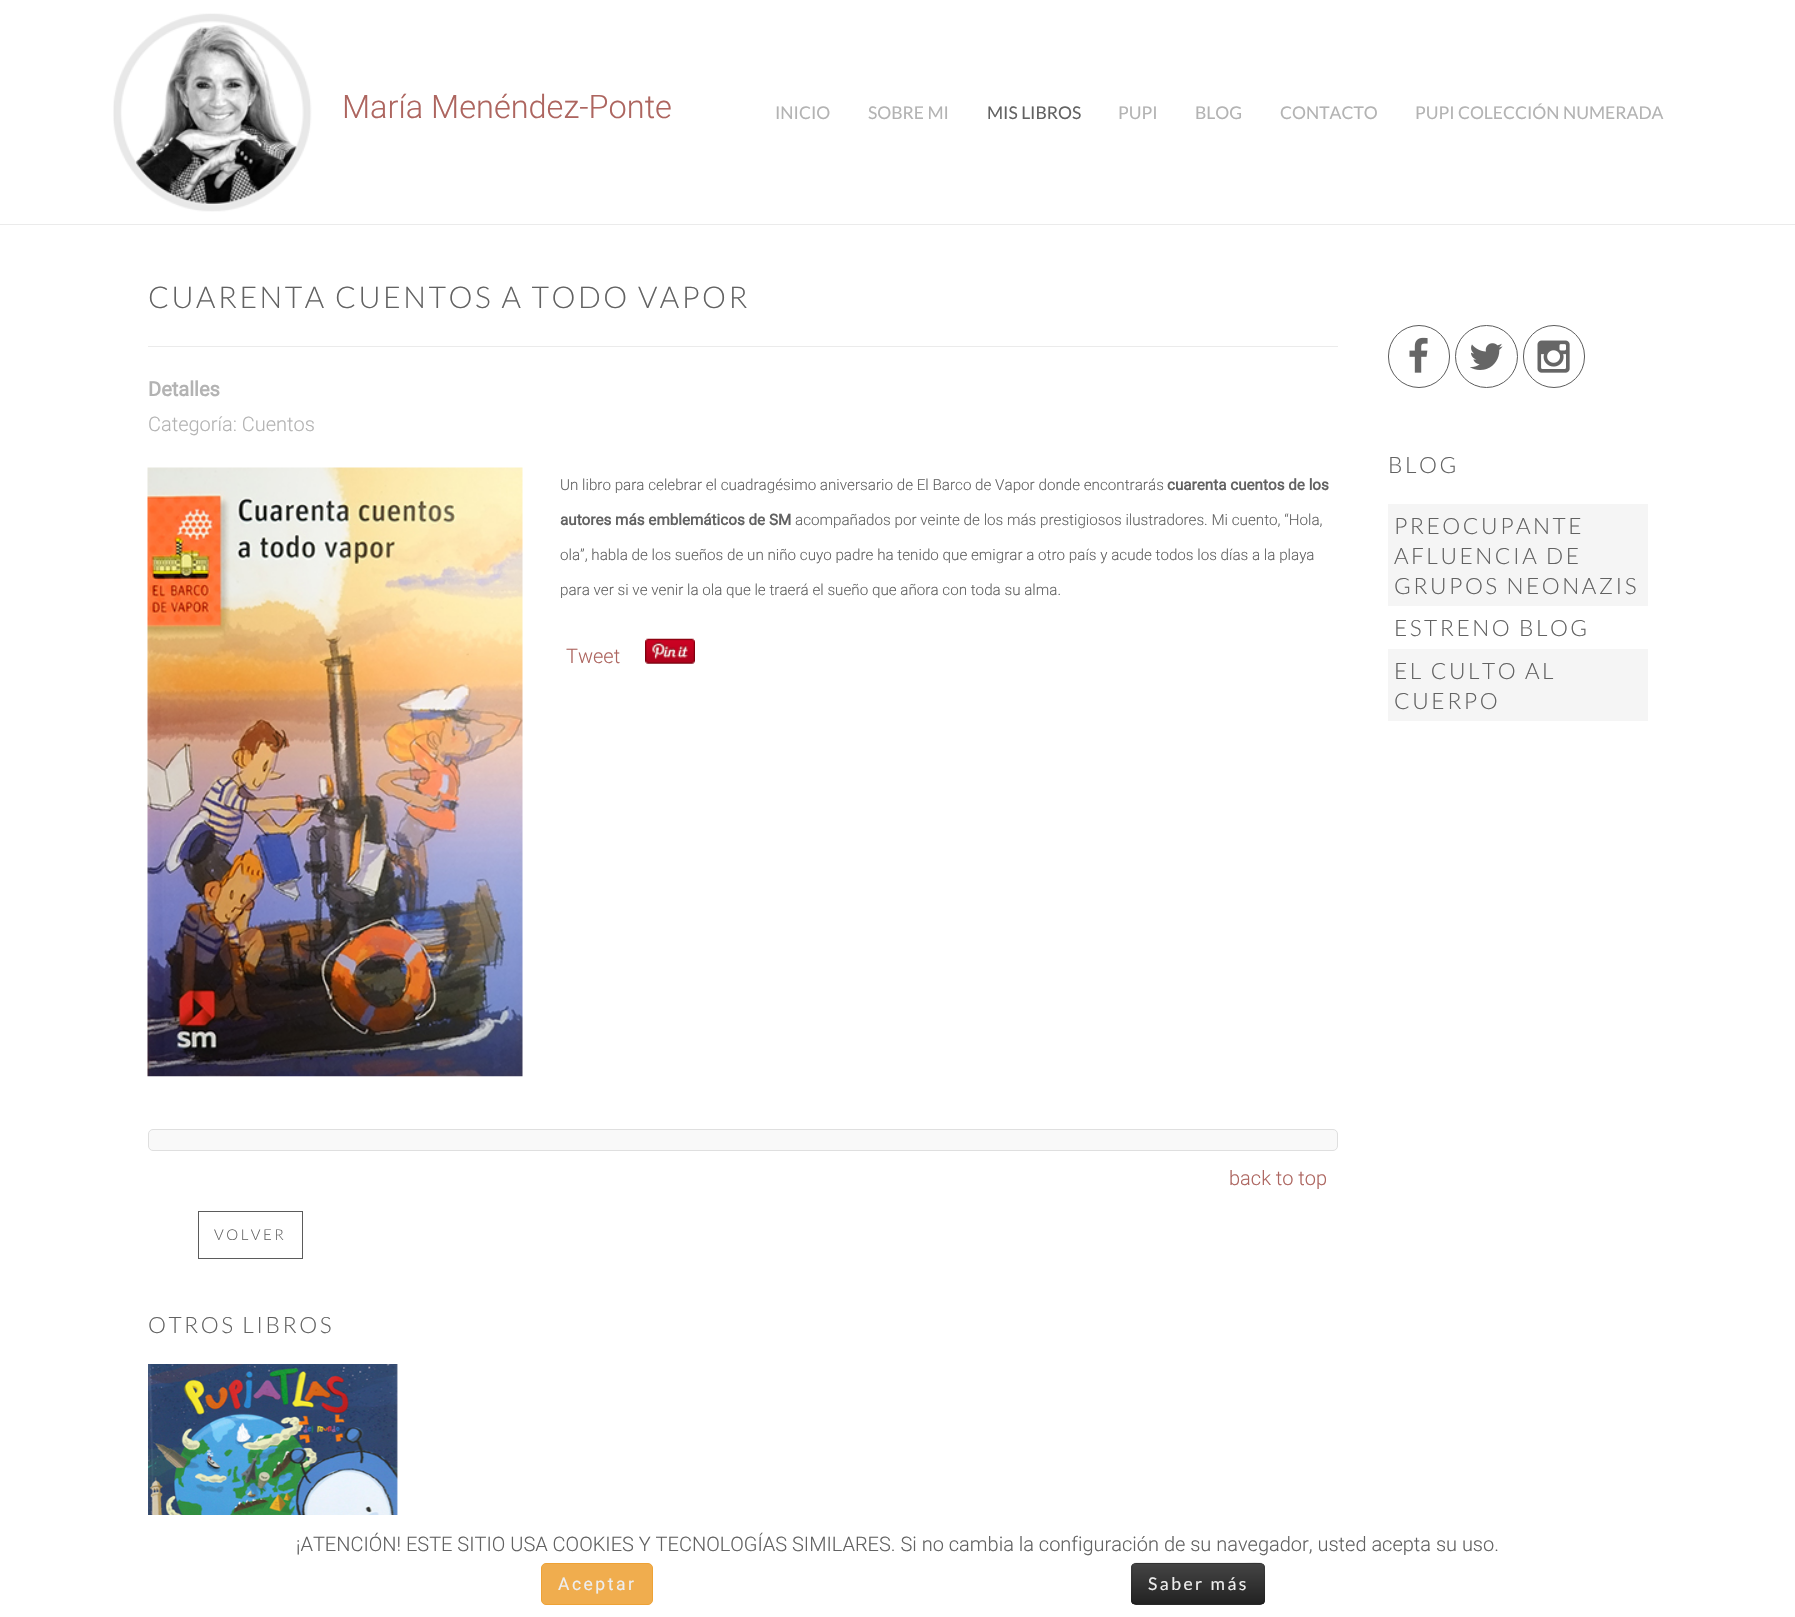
void draw(SkCanvas* canvas) {
    SkPaint paint;
    paint.setAntiAlias(true);
    auto spacedText = [&](const char* s, float x, float y, const SkFont& font, const SkPaint& ink, float letter, float word) {
        std::vector<SkGlyphID> glyphs(font.countText(s, strlen(s), SkTextEncoding::kUTF8));
        std::vector<float> xs(glyphs.size());
        font.textToGlyphs(s, strlen(s), SkTextEncoding::kUTF8, glyphs);
        font.getXPos(glyphs, xs, x);
        float extra = 0;
        for (size_t i = 0; i < glyphs.size(); i++) {
            xs[i] += extra;
            extra += letter + word * (glyphs[i] == font.unicharToGlyph(' '));
        }
        canvas->drawTextBlob(SkTextBlob::MakeFromPosHGlyphs(glyphs, xs, y, font), 0, 0, ink);
    };
    canvas->clear(0xFFFFFFFF);
    paint.setColor(0xFFEBEBEB);
    canvas->drawRect(SkRect::MakeXYWH(0, 224, 1795, 1), paint);
    canvas->drawImageRect(SkImages::DeferredFromEncodedData(SkData::MakeFromFileName("img1.png")), SkRect::MakeXYWH(113, 13, 199, 199), SkSamplingOptions());
    SkFont font1(fontMgr->matchFamilyStyle("Roboto", SkFontStyle(300, SkFontStyle::kNormal_Width, SkFontStyle::kUpright_Slant)), 32.5f);
    font1.setSubpixel(true);
    paint.setColor(0xFFAD655F);
    canvas->drawString("María Menéndez-Ponte", 342, 118, font1, paint);
    SkFont font2(fontMgr->matchFamilyStyle("Lato", SkFontStyle::Normal()), 17.5f);
    font2.setSubpixel(true);
    paint.setColor(0xFFB3B3B3);
    canvas->drawString("INICIO", 775, 119, font2, paint);
    canvas->drawString("SOBRE MI", 868, 119, font2, paint);
    paint.setColor(0xFF626262);
    canvas->drawString("MIS LIBROS", 987, 119, font2, paint);
    paint.setColor(0xFFB3B3B3);
    canvas->drawString("PUPI", 1118, 119, font2, paint);
    canvas->drawString("BLOG", 1195, 119, font2, paint);
    canvas->drawString("CONTACTO", 1280, 119, font2, paint);
    canvas->drawString("PUPI COLECCIÓN NUMERADA", 1415, 119, font2, paint);
    paint.setColor(0xFFEBEBEB);
    canvas->drawRect(SkRect::MakeXYWH(148, 346, 1190, 1), paint);
    SkFont font3(fontMgr->matchFamilyStyle("Lato", SkFontStyle(300, SkFontStyle::kNormal_Width, SkFontStyle::kUpright_Slant)), 30);
    font3.setSubpixel(true);
    paint.setColor(0xFF626262);
    spacedText("CUARENTA CUENTOS A TODO VAPOR", 148, 308, font3, paint, 2.5f, 0);
    SkFont font4(fontMgr->matchFamilyStyle("Roboto", SkFontStyle::Bold()), 20);
    font4.setSubpixel(true);
    paint.setColor(0xFFB3B3B3);
    canvas->drawString("Detalles", 148, 396, font4, paint);
    SkFont font5(fontMgr->matchFamilyStyle("Roboto", SkFontStyle(300, SkFontStyle::kNormal_Width, SkFontStyle::kUpright_Slant)), 20);
    font5.setSubpixel(true);
    canvas->drawString("Categoría: Cuentos", 148, 431, font5, paint);
    canvas->drawImageRect(SkImages::DeferredFromEncodedData(SkData::MakeFromFileName("img2.png")), SkRect::MakeXYWH(147, 467, 376, 610), SkSamplingOptions());
    SkFont font6(fontMgr->matchFamilyStyle("Roboto", SkFontStyle(300, SkFontStyle::kNormal_Width, SkFontStyle::kUpright_Slant)), 15.2f);
    font6.setSubpixel(true);
    paint.setColor(0xFF626262);
    canvas->drawString("Un libro para celebrar el cuadragésimo aniversario de El Barco de Vapor donde encontrarás", 560, 490, font6, paint);
    SkFont font7(fontMgr->matchFamilyStyle("Roboto", SkFontStyle::Bold()), 15.2f);
    font7.setSubpixel(true);
    canvas->drawString("cuarenta cuentos de los", 1167, 490, font7, paint);
    canvas->drawString("autores más emblemáticos de SM", 560, 525, font7, paint);
    canvas->drawString("acompañados por veinte de los más prestigiosos ilustradores. Mi cuento, “Hola,", 795, 525, font6, paint);
    canvas->drawString("ola”, habla de los sueños de un niño cuyo padre ha tenido que emigrar a otro país y acude todos los días a la playa", 560, 560, font6, paint);
    canvas->drawString("para ver si ve venir la ola que le traerá el sueño que añora con toda su alma.", 560, 595, font6, paint);
    paint.setColor(0xFFAD655F);
    canvas->drawString("Tweet", 566, 663, font5, paint);
    canvas->drawImageRect(SkImages::DeferredFromEncodedData(SkData::MakeFromFileName("img3.png")), SkRect::MakeXYWH(645, 638, 50, 26), SkSamplingOptions());
    paint.setColor(0xFFF9F9F9);
    canvas->drawRoundRect(SkRect::MakeXYWH(148.5f, 1129.5f, 1189, 21), 4.5f, 4.5f, paint);
    paint.setStyle(SkPaint::kStroke_Style);
    paint.setStrokeWidth(1);
    paint.setColor(0xFFDFDFDF);
    canvas->drawRoundRect(SkRect::MakeXYWH(148.5f, 1129.5f, 1189, 21), 4.5f, 4.5f, paint);
    paint.setStyle(SkPaint::kFill_Style);
    paint.setColor(0xFFAD655F);
    canvas->drawString("back to top", 1229, 1185, font5, paint);
    paint.setStyle(SkPaint::kStroke_Style);
    paint.setColor(0xFF5B5B5B);
    canvas->drawRect(SkRect::MakeXYWH(198.5f, 1211.5f, 104, 47), paint);
    SkFont font8(fontMgr->matchFamilyStyle("Lato", SkFontStyle(300, SkFontStyle::kNormal_Width, SkFontStyle::kUpright_Slant)), 15);
    font8.setSubpixel(true);
    paint.setStyle(SkPaint::kFill_Style);
    paint.setColor(0xFF626262);
    spacedText("VOLVER", 214, 1240, font8, paint, 2.5f, 0);
    paint.setStyle(SkPaint::kStroke_Style);
    paint.setColor(0xFF5B5B5B);
    canvas->drawRoundRect(SkRect::MakeXYWH(1388.5f, 325.5f, 61, 62), 30.5f, 30.5f, paint);
    canvas->drawImageRect(SkImages::DeferredFromEncodedData(SkData::MakeFromFileName("img4.png")), SkRect::MakeXYWH(1409, 337, 19, 36), SkSamplingOptions());
    canvas->drawCircle(1486.5f, 356.5f, 31, paint);
    canvas->drawImageRect(SkImages::DeferredFromEncodedData(SkData::MakeFromFileName("img5.png")), SkRect::MakeXYWH(1470, 343, 33, 27), SkSamplingOptions());
    canvas->drawRoundRect(SkRect::MakeXYWH(1523.5f, 325.5f, 61, 62), 30.5f, 30.5f, paint);
    canvas->drawImageRect(SkImages::DeferredFromEncodedData(SkData::MakeFromFileName("img6.png")), SkRect::MakeXYWH(1537, 340, 33, 33), SkSamplingOptions());
    SkFont font9(fontMgr->matchFamilyStyle("Lato", SkFontStyle(300, SkFontStyle::kNormal_Width, SkFontStyle::kUpright_Slant)), 22.5f);
    font9.setSubpixel(true);
    paint.setStyle(SkPaint::kFill_Style);
    paint.setColor(0xFF626262);
    spacedText("BLOG", 1388, 473, font9, paint, 2.5f, 0);
    paint.setColor(0xFFF5F5F5);
    canvas->drawRect(SkRect::MakeXYWH(1388, 504, 260, 102), paint);
    paint.setColor(0xFF626262);
    spacedText("PREOCUPANTE", 1394, 534, font9, paint, 2.5f, 0);
    spacedText("AFLUENCIA DE", 1394, 564, font9, paint, 2.5f, 0);
    spacedText("GRUPOS NEONAZIS", 1394, 594, font9, paint, 2.5f, 0);
    spacedText("ESTRENO BLOG", 1394, 636, font9, paint, 2.5f, 0);
    paint.setColor(0xFFF5F5F5);
    canvas->drawRect(SkRect::MakeXYWH(1388, 649, 260, 72), paint);
    paint.setColor(0xFF626262);
    spacedText("EL CULTO AL", 1394, 679, font9, paint, 2.5f, 0);
    spacedText("CUERPO", 1394, 709, font9, paint, 2.5f, 0);
    spacedText("OTROS LIBROS", 148, 1333, font9, paint, 2.5f, 0);
    canvas->drawImageRect(SkImages::DeferredFromEncodedData(SkData::MakeFromFileName("img7.png")), SkRect::MakeXYWH(148, 1364, 250, 151), SkSamplingOptions());
    canvas->drawString("¡ATENCIÓN! ESTE SITIO USA COOKIES Y TECNOLOGÍAS SIMILARES. Si no cambia la configuración de su navegador, usted acepta su uso.", 296, 1551, font5, paint);
    paint.setColor(0xFFF0AD4E);
    canvas->drawRoundRect(SkRect::MakeXYWH(541.5f, 1563.5f, 111, 41), 4.5f, 4.5f, paint);
    paint.setStyle(SkPaint::kStroke_Style);
    paint.setColor(0xFFEEA236);
    canvas->drawRoundRect(SkRect::MakeXYWH(541.5f, 1563.5f, 111, 41), 4.5f, 4.5f, paint);
    SkFont font10(fontMgr->matchFamilyStyle("Roboto", SkFontStyle::Normal()), 17.5f);
    font10.setSubpixel(true);
    paint.setStyle(SkPaint::kFill_Style);
    paint.setColor(0xFFEEEEEE);
    spacedText("Aceptar", 558, 1590, font10, paint, 2.5f, 0);
    paint.setColor(0xFF363636);
    canvas->drawRoundRect(SkRect::MakeXYWH(1131, 1563, 134, 42), 5, 5, paint);
    canvas->save();
    canvas->clipPath(SkPathBuilder().moveTo(1136, 1563).lineTo(1260, 1563).cubicTo(1263, 1563, 1265, 1565, 1265, 1568).lineTo(1265, 1600).cubicTo(1265, 1603, 1263, 1605, 1260, 1605).lineTo(1136, 1605).cubicTo(1133, 1605, 1131, 1603, 1131, 1600).lineTo(1131, 1568).cubicTo(1131, 1565, 1133, 1563, 1136, 1563).close().detach(), true);
    {
        const SkColor colors[] = {0xFF444444, 0xFF222222};
        const float stops[] = {0, 1};
        const SkPoint ends[] = {{1198, 1564}, {1198, 1604}};
        paint.setShader(SkGradientShader::MakeLinear(ends, colors, stops, 2, SkTileMode::kClamp));
        paint.setAlpha(255);
    }
    canvas->drawRect(SkRect::MakeXYWH(1131, 1564, 134, 40), paint);
    canvas->restore();
    paint.setStyle(SkPaint::kStroke_Style);
    paint.setStrokeWidth(1.2f);
    paint.setShader(nullptr);
    paint.setColor(0x40000000);
    canvas->drawPath(SkPathBuilder().moveTo(1263, 1603).lineTo(1260.5f, 1604.5f).lineTo(1157, 1604.5f).lineTo(1136, 1604.5f).lineTo(1133, 1603).detach(), paint);
    paint.setColor(0x1A000000);
    canvas->drawPath(SkPathBuilder().moveTo(1133, 1603).cubicTo(1130.5f, 1600.5f, 1132, 1592, 1132, 1589).lineTo(1132, 1573).cubicTo(1132, 1569.5f, 1131, 1563, 1136, 1563).lineTo(1239.5f, 1563).cubicTo(1267.5f, 1563, 1264.5f, 1558, 1264.5f, 1584).lineTo(1264.5f, 1594.5f).cubicTo(1264.5f, 1597, 1265, 1601, 1263, 1603).detach(), paint);
    paint.setStyle(SkPaint::kFill_Style);
    paint.setColor(0xFFEEEEEE);
    spacedText("Saber más", 1148, 1590, font2, paint, 2.5f, 0);
}
